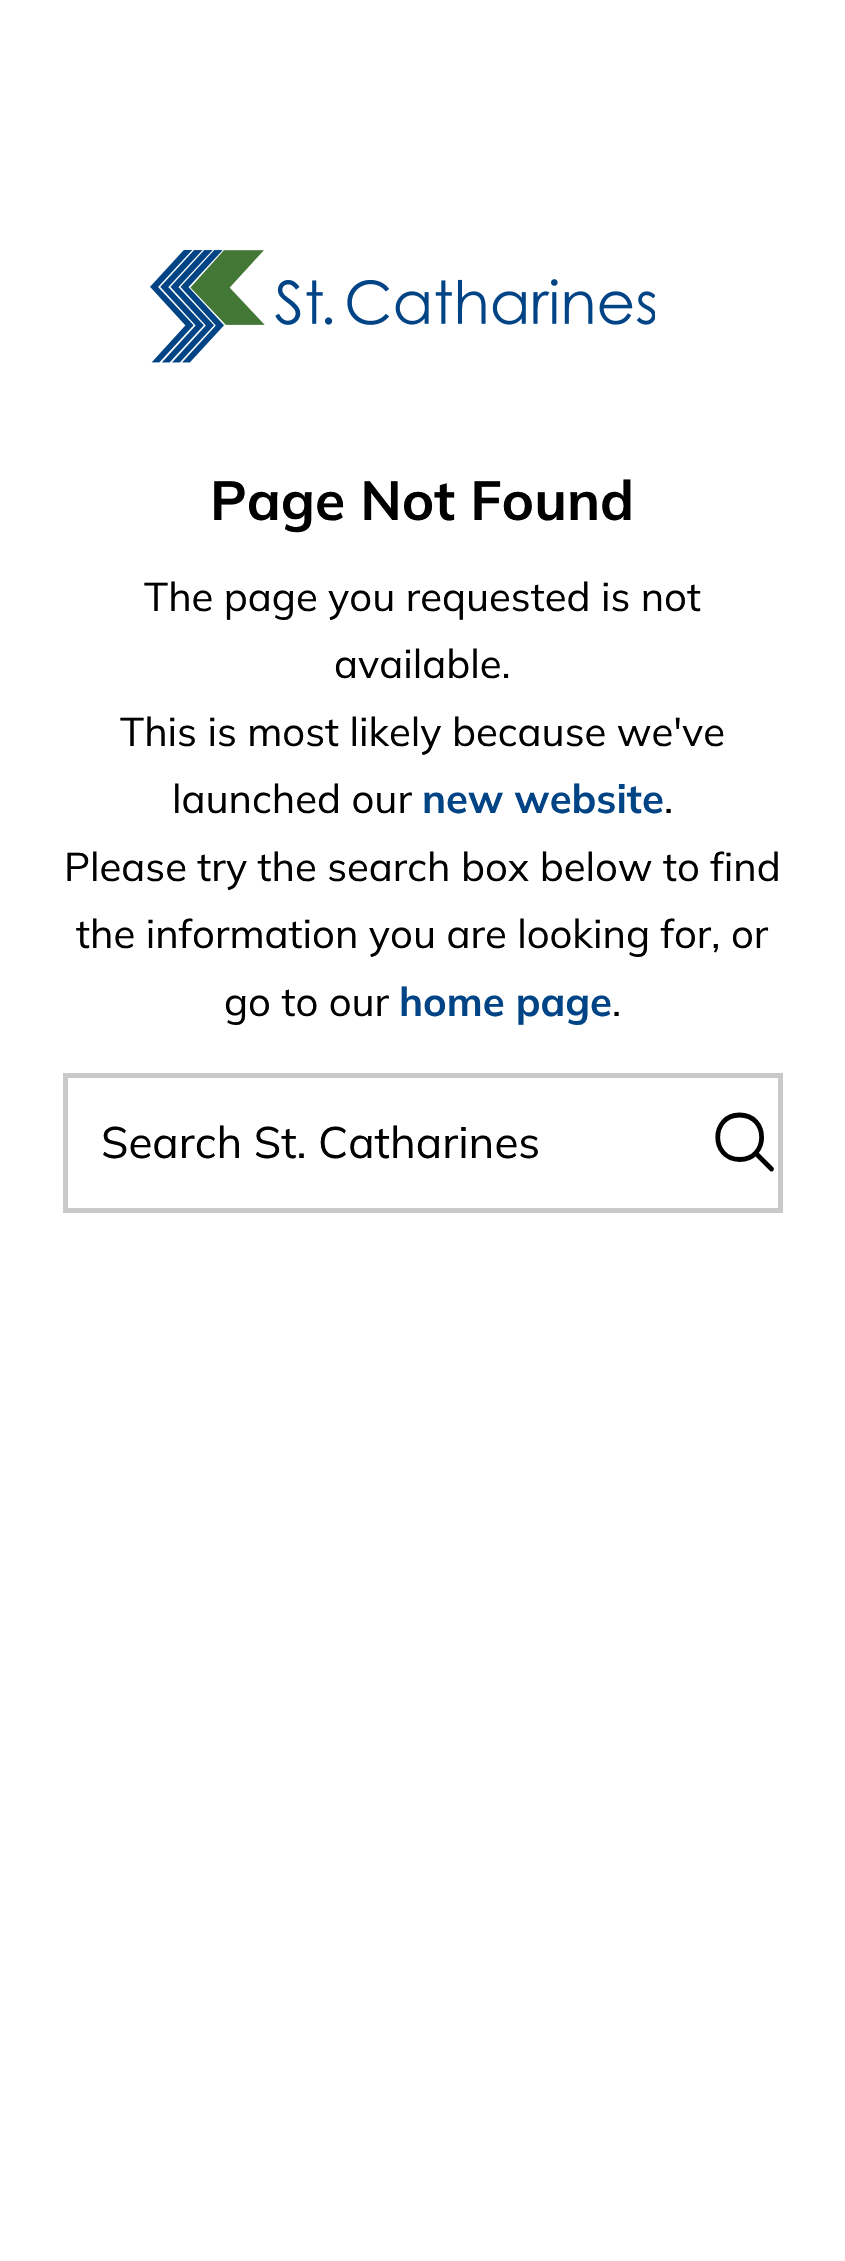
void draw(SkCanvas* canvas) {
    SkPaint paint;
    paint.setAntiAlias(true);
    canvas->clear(0xFFFFFFFF);
    canvas->drawImageRect(SkImages::DeferredFromEncodedData(SkData::MakeFromFileName("img1.png")), SkRect::MakeXYWH(150, 250, 505, 113), SkSamplingOptions());
    SkFont font1(fontMgr->matchFamilyStyle("Mulish", SkFontStyle::Bold()), 55);
    font1.setSubpixel(true);
    paint.setColor(0xFF000000);
    canvas->drawString("Page Not Found", 210, 520, font1, paint);
    SkFont font2(fontMgr->matchFamilyStyle("Mulish", SkFontStyle::Normal()), 40);
    font2.setSubpixel(true);
    canvas->drawString("The page you requested is not", 144, 611, font2, paint);
    canvas->drawString("available.", 334, 678, font2, paint);
    canvas->drawString("This is most likely because we've", 120, 746, font2, paint);
    canvas->drawString("launched our", 172, 813, font2, paint);
    SkFont font3(fontMgr->matchFamilyStyle("Mulish", SkFontStyle::Bold()), 40);
    font3.setSubpixel(true);
    paint.setColor(0xFF004485);
    canvas->drawString("new website", 422, 813, font3, paint);
    paint.setColor(0xFF000000);
    canvas->drawString(".", 664, 813, font2, paint);
    canvas->drawString("Please try the search box below to find", 64, 881, font2, paint);
    canvas->drawString("the information you are looking for, or", 76, 948, font2, paint);
    canvas->drawString("go to our", 224, 1016, font2, paint);
    paint.setColor(0xFF004485);
    canvas->drawString("home page", 399, 1016, font3, paint);
    paint.setColor(0xFF000000);
    canvas->drawString(".", 612, 1016, font2, paint);
    paint.setStyle(SkPaint::kStroke_Style);
    paint.setStrokeWidth(5);
    paint.setColor(0xFFC9C9C9);
    canvas->drawRect(SkRect::MakeXYWH(65.5f, 1075.5f, 715, 135), paint);
    SkFont font4(fontMgr->matchFamilyStyle("Mulish", SkFontStyle::Normal()), 44);
    font4.setSubpixel(true);
    paint.setStyle(SkPaint::kFill_Style);
    paint.setColor(0xFF000000);
    canvas->drawString("Search St. Catharines", 101, 1158, font4, paint);
    paint.setStyle(SkPaint::kStroke_Style);
    paint.setStrokeWidth(4.8f);
    paint.setStrokeCap(SkPaint::kRound_Cap);
    paint.setStrokeJoin(SkPaint::kRound_Join);
    canvas->drawPath(SkPathBuilder().moveTo(739.5f, 1159.5f).cubicTo(710.5f, 1159.5f, 710.5f, 1115, 739.5f, 1115).cubicTo(769, 1115, 769, 1159.5f, 739.5f, 1159.5f).close().moveTo(771.5f, 1169).lineTo(756, 1153.5f).detach(), paint);
}
